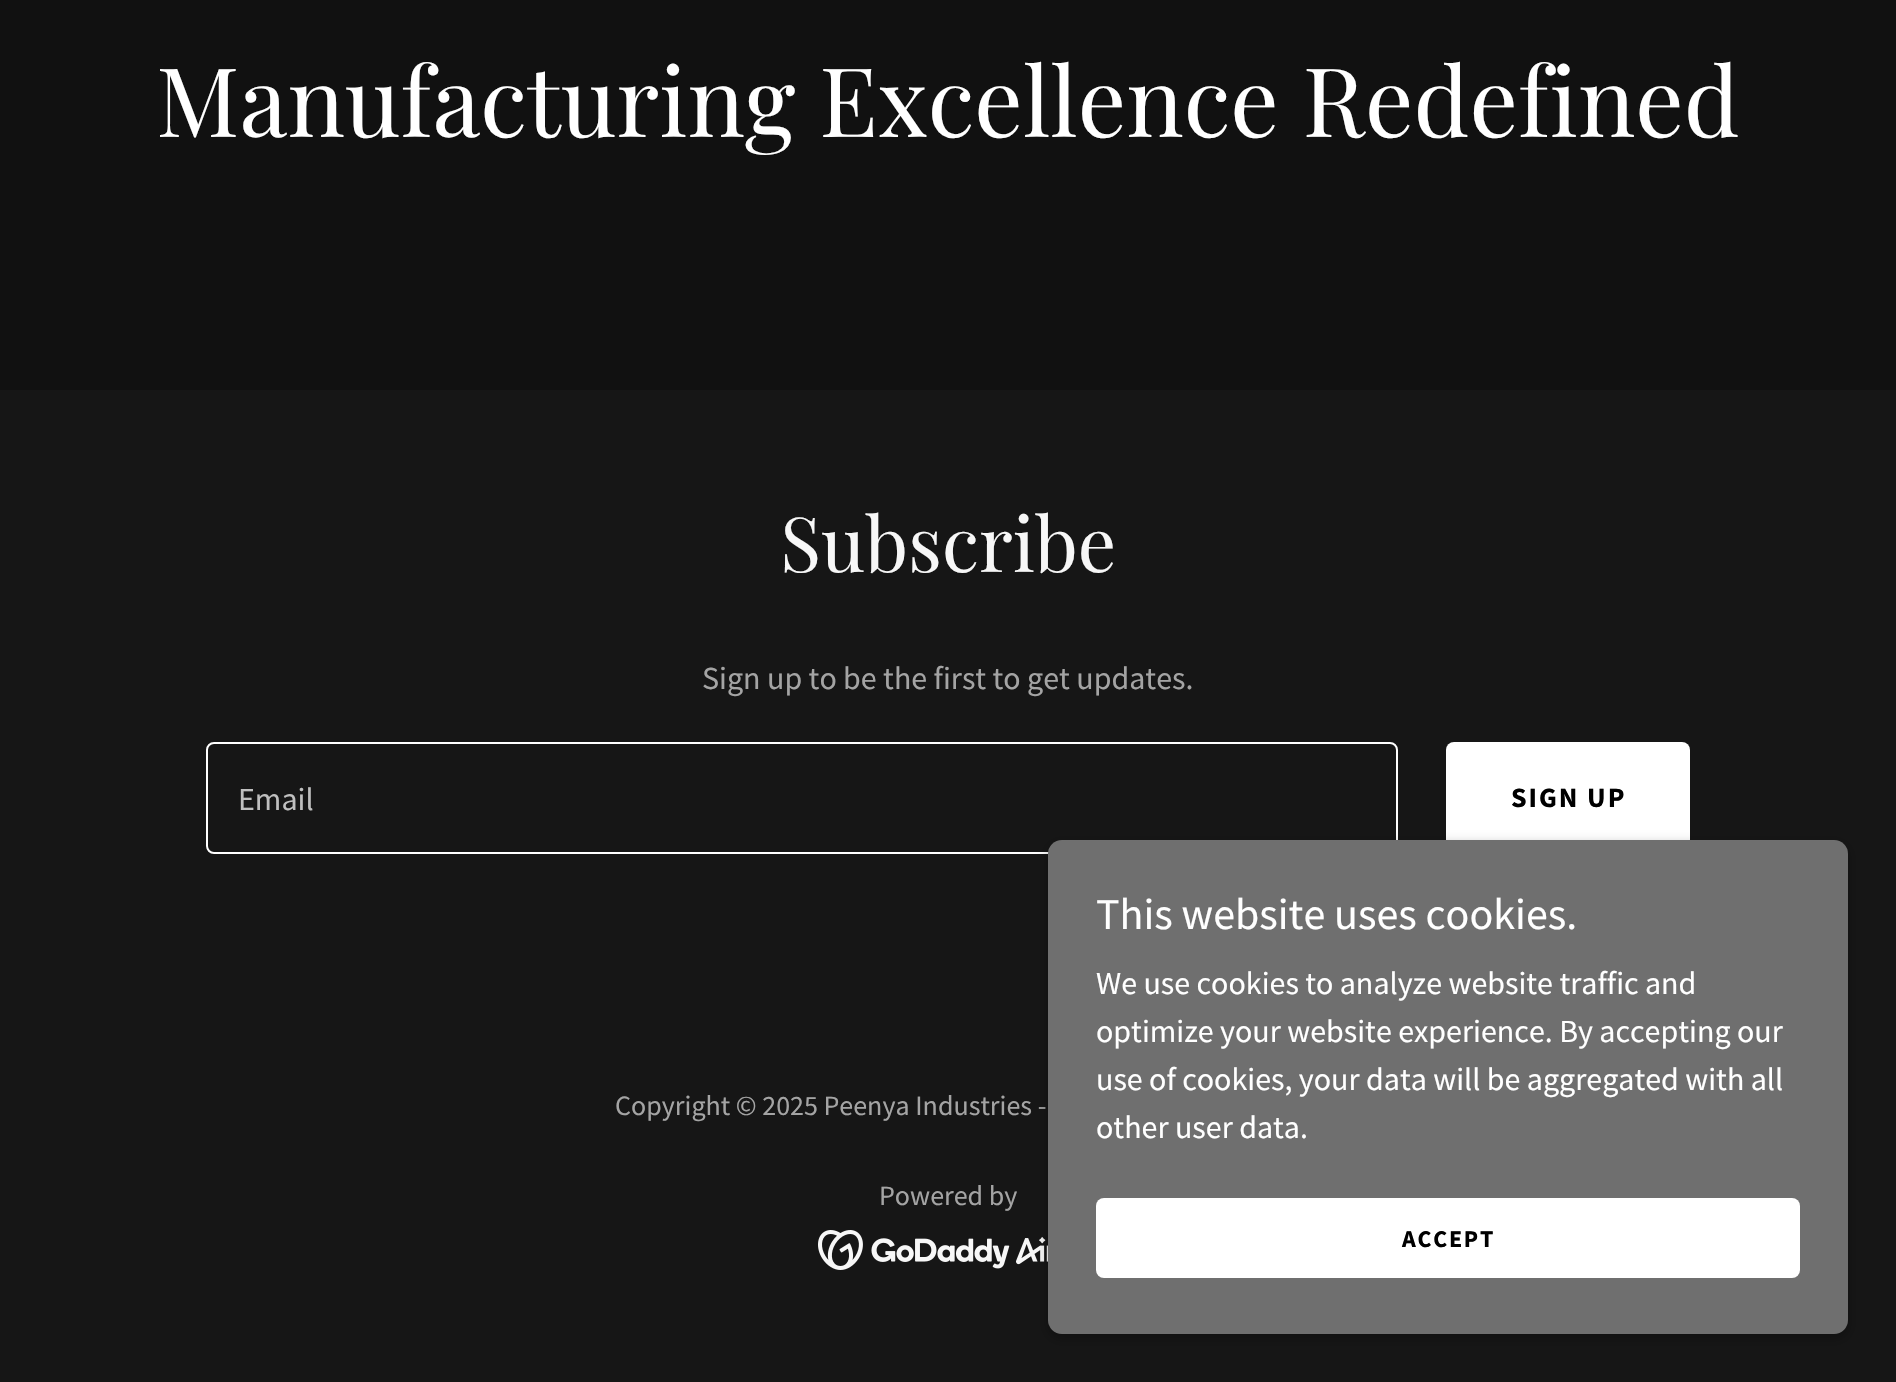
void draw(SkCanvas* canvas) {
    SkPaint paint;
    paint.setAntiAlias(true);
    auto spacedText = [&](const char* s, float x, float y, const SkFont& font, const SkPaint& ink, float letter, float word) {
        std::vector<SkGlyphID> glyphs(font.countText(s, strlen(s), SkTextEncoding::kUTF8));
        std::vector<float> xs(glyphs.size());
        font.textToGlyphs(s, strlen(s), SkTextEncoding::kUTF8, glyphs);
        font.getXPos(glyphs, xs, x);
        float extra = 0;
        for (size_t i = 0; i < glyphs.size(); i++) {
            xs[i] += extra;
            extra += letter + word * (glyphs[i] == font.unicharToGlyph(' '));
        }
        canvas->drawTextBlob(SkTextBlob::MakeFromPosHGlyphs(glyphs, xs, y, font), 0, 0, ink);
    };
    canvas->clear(0xFF161616);
    paint.setColor(0xFF111111);
    canvas->drawRect(SkRect::MakeXYWH(0, 0, 1896, 390), paint);
    SkFont font1(fontMgr->matchFamilyStyle("Playfair Display", SkFontStyle::Normal()), 96);
    font1.setSubpixel(true);
    paint.setColor(0xFFFFFFFF);
    canvas->drawString("Manufacturing Excellence Redefined", 156, 137, font1, paint);
    SkFont font2(fontMgr->matchFamilyStyle("Playfair Display", SkFontStyle::Normal()), 76);
    font2.setSubpixel(true);
    paint.setColor(0xFFF7F7F7);
    canvas->drawString("Subscribe", 780, 572, font2, paint);
    SkFont font3(fontMgr->matchFamilyStyle("Source Sans Pro", SkFontStyle::Normal()), 32);
    font3.setSubpixel(true);
    paint.setColor(0xFFA4A4A4);
    canvas->drawString("Sign up to be the first to get updates.", 702, 689, font3, paint);
    paint.setStyle(SkPaint::kStroke_Style);
    paint.setStrokeWidth(2);
    paint.setColor(0xFFFFFFFF);
    canvas->drawRoundRect(SkRect::MakeXYWH(207, 743, 1190, 110), 7, 7, paint);
    paint.setStyle(SkPaint::kFill_Style);
    paint.setColor(0xFFBFBFBF);
    canvas->drawString("Email", 238, 810, font3, paint);
    paint.setColor(0xFFFFFFFF);
    canvas->drawRoundRect(SkRect::MakeXYWH(1446, 742, 244, 112), 8, 8, paint);
    SkFont font4(fontMgr->matchFamilyStyle("Source Sans Pro", SkFontStyle::Bold()), 28);
    font4.setSubpixel(true);
    paint.setColor(0xFF000000);
    spacedText("SIGN UP", 1511, 807, font4, paint, 2, 0);
    SkFont font5(fontMgr->matchFamilyStyle("Source Sans Pro", SkFontStyle::Normal()), 28);
    font5.setSubpixel(true);
    paint.setColor(0xFFA4A4A4);
    canvas->drawString("Copyright © 2025 Peenya Industries -", 615, 1115, font5, paint);
    canvas->drawString("Powered by", 879, 1205, font5, paint);
    canvas->drawImageRect(SkImages::DeferredFromEncodedData(SkData::MakeFromFileName("img1.png")), SkRect::MakeXYWH(818, 1230, 230, 40), SkSamplingOptions());
    paint.setColor(0x4D000000);
    paint.setMaskFilter(SkMaskFilter::MakeBlur(kNormal_SkBlurStyle, 6));
    canvas->drawRoundRect(SkRect::MakeXYWH(1048, 844, 800, 494), 14, 14, paint);
    paint.setMaskFilter(nullptr);
    paint.setColor(0xFF6F6F6F);
    canvas->drawRoundRect(SkRect::MakeXYWH(1048, 840, 800, 494), 14, 14, paint);
    SkFont font6(fontMgr->matchFamilyStyle("Source Sans Pro", SkFontStyle::Normal()), 44);
    font6.setSubpixel(true);
    paint.setColor(0xFFFFFFFF);
    canvas->drawString("This website uses cookies.", 1096, 929, font6, paint);
    canvas->drawString("We use cookies to analyze website traffic and", 1096, 994, font3, paint);
    canvas->drawString("optimize your website experience. By accepting our", 1096, 1042, font3, paint);
    canvas->drawString("use of cookies, your data will be aggregated with all", 1096, 1090, font3, paint);
    canvas->drawString("other user data.", 1096, 1138, font3, paint);
    canvas->drawRoundRect(SkRect::MakeXYWH(1096, 1198, 704, 80), 8, 8, paint);
    SkFont font7(fontMgr->matchFamilyStyle("Source Sans Pro", SkFontStyle::Bold()), 24);
    font7.setSubpixel(true);
    paint.setColor(0xFF000000);
    spacedText("ACCEPT", 1402, 1247, font7, paint, 1.75f, 0);
}
